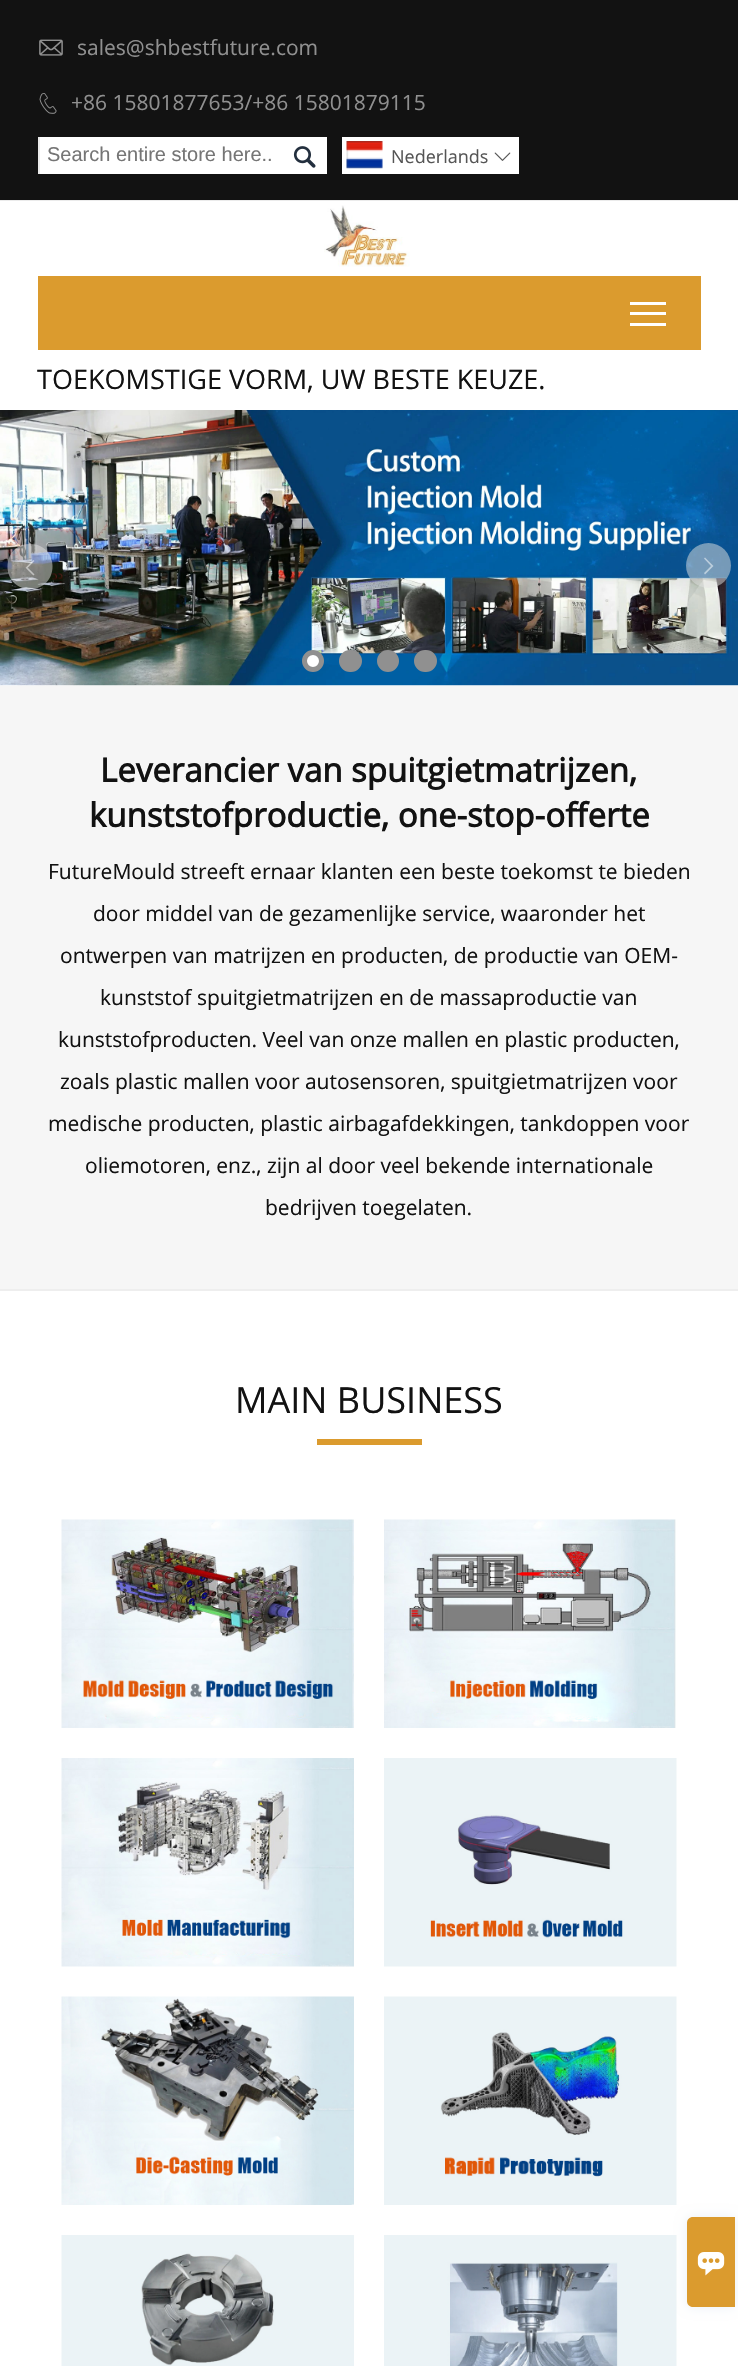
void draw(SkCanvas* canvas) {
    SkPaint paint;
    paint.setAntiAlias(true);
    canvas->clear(0xFFFFFFFF);
    paint.setColor(0xFF121212);
    canvas->drawRect(SkRect::MakeXYWH(0, 0, 738, 200), paint);
    paint.setColor(0xFFEBEBEB);
    canvas->drawRect(SkRect::MakeXYWH(0, 200, 738, 1), paint);
    canvas->drawImageRect(SkImages::DeferredFromEncodedData(SkData::MakeFromFileName("img1.png")), SkRect::MakeXYWH(39, 39, 24, 17), SkSamplingOptions());
    SkFont font1(fontMgr->matchFamilyStyle("Open Sans", SkFontStyle::Normal()), 21);
    font1.setSubpixel(true);
    paint.setColor(0xFF909090);
    canvas->drawString("sales@shbestfuture.com", 77, 55, font1, paint);
    canvas->drawImageRect(SkImages::DeferredFromEncodedData(SkData::MakeFromFileName("img2.png")), SkRect::MakeXYWH(39, 93, 18, 21), SkSamplingOptions());
    canvas->drawString("+86 15801877653/+86 15801879115", 71, 110, font1, paint);
    paint.setColor(0xFFFFFFFF);
    canvas->drawRect(SkRect::MakeXYWH(40, 137, 287, 37), paint);
    paint.setColor(0xFFEAEAEA);
    canvas->drawRect(SkRect::MakeXYWH(38, 137, 2, 37), paint);
    SkFont font2(fontMgr->matchFamilyStyle("Liberation Sans", SkFontStyle::Normal()), 20);
    font2.setSubpixel(true);
    paint.setColor(0xFF757575);
    canvas->drawString("Search entire store here..", 47, 161, font2, paint);
    canvas->drawImageRect(SkImages::DeferredFromEncodedData(SkData::MakeFromFileName("img3.png")), SkRect::MakeXYWH(293, 146, 23, 22), SkSamplingOptions());
    paint.setColor(0xFFFFFFFF);
    canvas->drawRect(SkRect::MakeXYWH(342, 137, 177, 37), paint);
    canvas->drawImageRect(SkImages::DeferredFromEncodedData(SkData::MakeFromFileName("img4.png")), SkRect::MakeXYWH(346, 141, 37, 28), SkSamplingOptions());
    SkFont font3(fontMgr->matchFamilyStyle("Open Sans", SkFontStyle::Normal()), 18);
    font3.setSubpixel(true);
    paint.setColor(0xFF555555);
    canvas->drawString("Nederlands", 391, 163, font3, paint);
    canvas->drawImageRect(SkImages::DeferredFromEncodedData(SkData::MakeFromFileName("img5.png")), SkRect::MakeXYWH(494, 152, 17, 9), SkSamplingOptions());
    canvas->drawImageRect(SkImages::DeferredFromEncodedData(SkData::MakeFromFileName("img6.png")), SkRect::MakeXYWH(324, 205, 86, 62), SkSamplingOptions());
    paint.setColor(0xFFDB9B2E);
    canvas->drawRect(SkRect::MakeXYWH(38, 276, 663, 74), paint);
    paint.setColor(0xFFFFFFFF);
    canvas->drawRect(SkRect::MakeXYWH(630, 312, 36, 3), paint);
    canvas->drawRect(SkRect::MakeXYWH(630, 302, 36, 3), paint);
    canvas->drawRect(SkRect::MakeXYWH(630, 323, 36, 3), paint);
    SkFont font4(fontMgr->matchFamilyStyle("Open Sans", SkFontStyle::Normal()), 27);
    font4.setSubpixel(true);
    paint.setColor(0xFF121212);
    canvas->drawString("TOEKOMSTIGE VORM, UW BESTE KEUZE.", 37, 389, font4, paint);
    canvas->drawImageRect(SkImages::DeferredFromEncodedData(SkData::MakeFromFileName("img7.png")), SkRect::MakeXYWH(0, 410, 738, 276), SkSamplingOptions());
    paint.setColor(0x80E1E1E1);
    canvas->drawPath(SkPathBuilder().moveTo(30, 544).cubicTo(0, 544, 0, 589, 30, 589).cubicTo(60, 589, 60, 544, 30, 544).close().detach(), paint);
    canvas->drawImageRect(SkImages::DeferredFromEncodedData(SkData::MakeFromFileName("img8.png")), SkRect::MakeXYWH(25, 560, 10, 16), SkSamplingOptions());
    canvas->drawCircle(708.5f, 565.5f, 22.5f, paint);
    paint.setColor(0x80FFFFFF);
    canvas->drawPath(SkPathBuilder().moveTo(705, 557.5f).lineTo(704, 558.5f).lineTo(711, 566).lineTo(704, 573).lineTo(705, 574.5f).lineTo(713.5f, 566).close().detach(), paint);
    paint.setColor(0xFFFFFFFF);
    canvas->drawCircle(313, 661, 8.5f, paint);
    paint.setStyle(SkPaint::kStroke_Style);
    paint.setStrokeWidth(5);
    paint.setColor(0xFF909090);
    canvas->drawCircle(313, 661, 8.5f, paint);
    paint.setStyle(SkPaint::kFill_Style);
    canvas->drawRoundRect(SkRect::MakeXYWH(341.5f, 652.5f, 18, 17), 8.5f, 8.5f, paint);
    paint.setStyle(SkPaint::kStroke_Style);
    canvas->drawRoundRect(SkRect::MakeXYWH(341.5f, 652.5f, 18, 17), 8.5f, 8.5f, paint);
    paint.setStyle(SkPaint::kFill_Style);
    canvas->drawCircle(388, 661, 8.5f, paint);
    paint.setStyle(SkPaint::kStroke_Style);
    canvas->drawCircle(388, 661, 8.5f, paint);
    paint.setStyle(SkPaint::kFill_Style);
    canvas->drawRoundRect(SkRect::MakeXYWH(416.5f, 652.5f, 18, 17), 8.5f, 8.5f, paint);
    paint.setStyle(SkPaint::kStroke_Style);
    canvas->drawRoundRect(SkRect::MakeXYWH(416.5f, 652.5f, 18, 17), 8.5f, 8.5f, paint);
    paint.setStyle(SkPaint::kFill_Style);
    paint.setColor(0xFFF6F6F6);
    canvas->drawRect(SkRect::MakeXYWH(0, 686, 738, 603), paint);
    paint.setColor(0xFFEEEEEE);
    canvas->drawRect(SkRect::MakeXYWH(0, 1289, 738, 2), paint);
    SkFont font5(fontMgr->matchFamilyStyle("Open Sans", SkFontStyle::Bold()), 33);
    font5.setSubpixel(true);
    paint.setColor(0xFF121212);
    canvas->drawString("Leverancier van spuitgietmatrijzen,", 100, 782, font5, paint);
    canvas->drawString("kunststofproductie, one-stop-offerte", 89, 827, font5, paint);
    canvas->drawString("FutureMould streeft ernaar klanten een beste toekomst te bieden", 48, 879, font1, paint);
    canvas->drawString("door middel van de gezamenlijke service, waaronder het", 93, 921, font1, paint);
    canvas->drawString("ontwerpen van matrijzen en producten, de productie van OEM-", 60, 963, font1, paint);
    canvas->drawString("kunststof spuitgietmatrijzen en de massaproductie van", 100, 1005, font1, paint);
    canvas->drawString("kunststofproducten. Veel van onze mallen en plastic producten,", 58, 1047, font1, paint);
    canvas->drawString("zoals plastic mallen voor autosensoren, spuitgietmatrijzen voor", 60, 1089, font1, paint);
    canvas->drawString("medische producten, plastic airbagafdekkingen, tankdoppen voor", 48, 1131, font1, paint);
    canvas->drawString("oliemotoren, enz., zijn al door veel bekende internationale", 85, 1173, font1, paint);
    canvas->drawString("bedrijven toegelaten.", 265, 1215, font1, paint);
    SkFont font6(fontMgr->matchFamilyStyle("Open Sans", SkFontStyle::Normal()), 36);
    font6.setSubpixel(true);
    canvas->drawString("MAIN BUSINESS", 235, 1413, font6, paint);
    paint.setColor(0xFFDB9B2E);
    canvas->drawRect(SkRect::MakeXYWH(317, 1439, 105, 6), paint);
    canvas->drawImageRect(SkImages::DeferredFromEncodedData(SkData::MakeFromFileName("img9.png")), SkRect::MakeXYWH(61, 1519, 293, 209), SkSamplingOptions());
    canvas->drawImageRect(SkImages::DeferredFromEncodedData(SkData::MakeFromFileName("img10.png")), SkRect::MakeXYWH(384, 1519, 292, 209), SkSamplingOptions());
    canvas->drawImageRect(SkImages::DeferredFromEncodedData(SkData::MakeFromFileName("img11.png")), SkRect::MakeXYWH(61, 1758, 293, 209), SkSamplingOptions());
    canvas->drawImageRect(SkImages::DeferredFromEncodedData(SkData::MakeFromFileName("img12.png")), SkRect::MakeXYWH(384, 1758, 293, 209), SkSamplingOptions());
    canvas->drawImageRect(SkImages::DeferredFromEncodedData(SkData::MakeFromFileName("img13.png")), SkRect::MakeXYWH(61, 1996, 293, 209), SkSamplingOptions());
    canvas->drawImageRect(SkImages::DeferredFromEncodedData(SkData::MakeFromFileName("img14.png")), SkRect::MakeXYWH(384, 1996, 293, 209), SkSamplingOptions());
    canvas->drawImageRect(SkImages::DeferredFromEncodedData(SkData::MakeFromFileName("img15.png")), SkRect::MakeXYWH(61, 2235, 293, 131), SkSamplingOptions());
    canvas->drawImageRect(SkImages::DeferredFromEncodedData(SkData::MakeFromFileName("img16.png")), SkRect::MakeXYWH(384, 2235, 293, 131), SkSamplingOptions());
    paint.setColor(0xFFEAF0F6);
    paint.setMaskFilter(SkMaskFilter::MakeBlur(kNormal_SkBlurStyle, 6));
    canvas->drawRoundRect(SkRect::MakeXYWH(687, 2217, 48, 90), 6, 6, paint);
    paint.setMaskFilter(nullptr);
    paint.setColor(0xFFDB9B2E);
    canvas->drawPath(SkPathBuilder().moveTo(693, 2217).lineTo(735, 2217).lineTo(735, 2307).lineTo(693, 2307).cubicTo(689.5f, 2307, 687, 2304.5f, 687, 2301).lineTo(687, 2223).cubicTo(687, 2219.5f, 689.5f, 2217, 693, 2217).close().detach(), paint);
    canvas->drawImageRect(SkImages::DeferredFromEncodedData(SkData::MakeFromFileName("img17.png")), SkRect::MakeXYWH(697, 2252, 28, 24), SkSamplingOptions());
}
